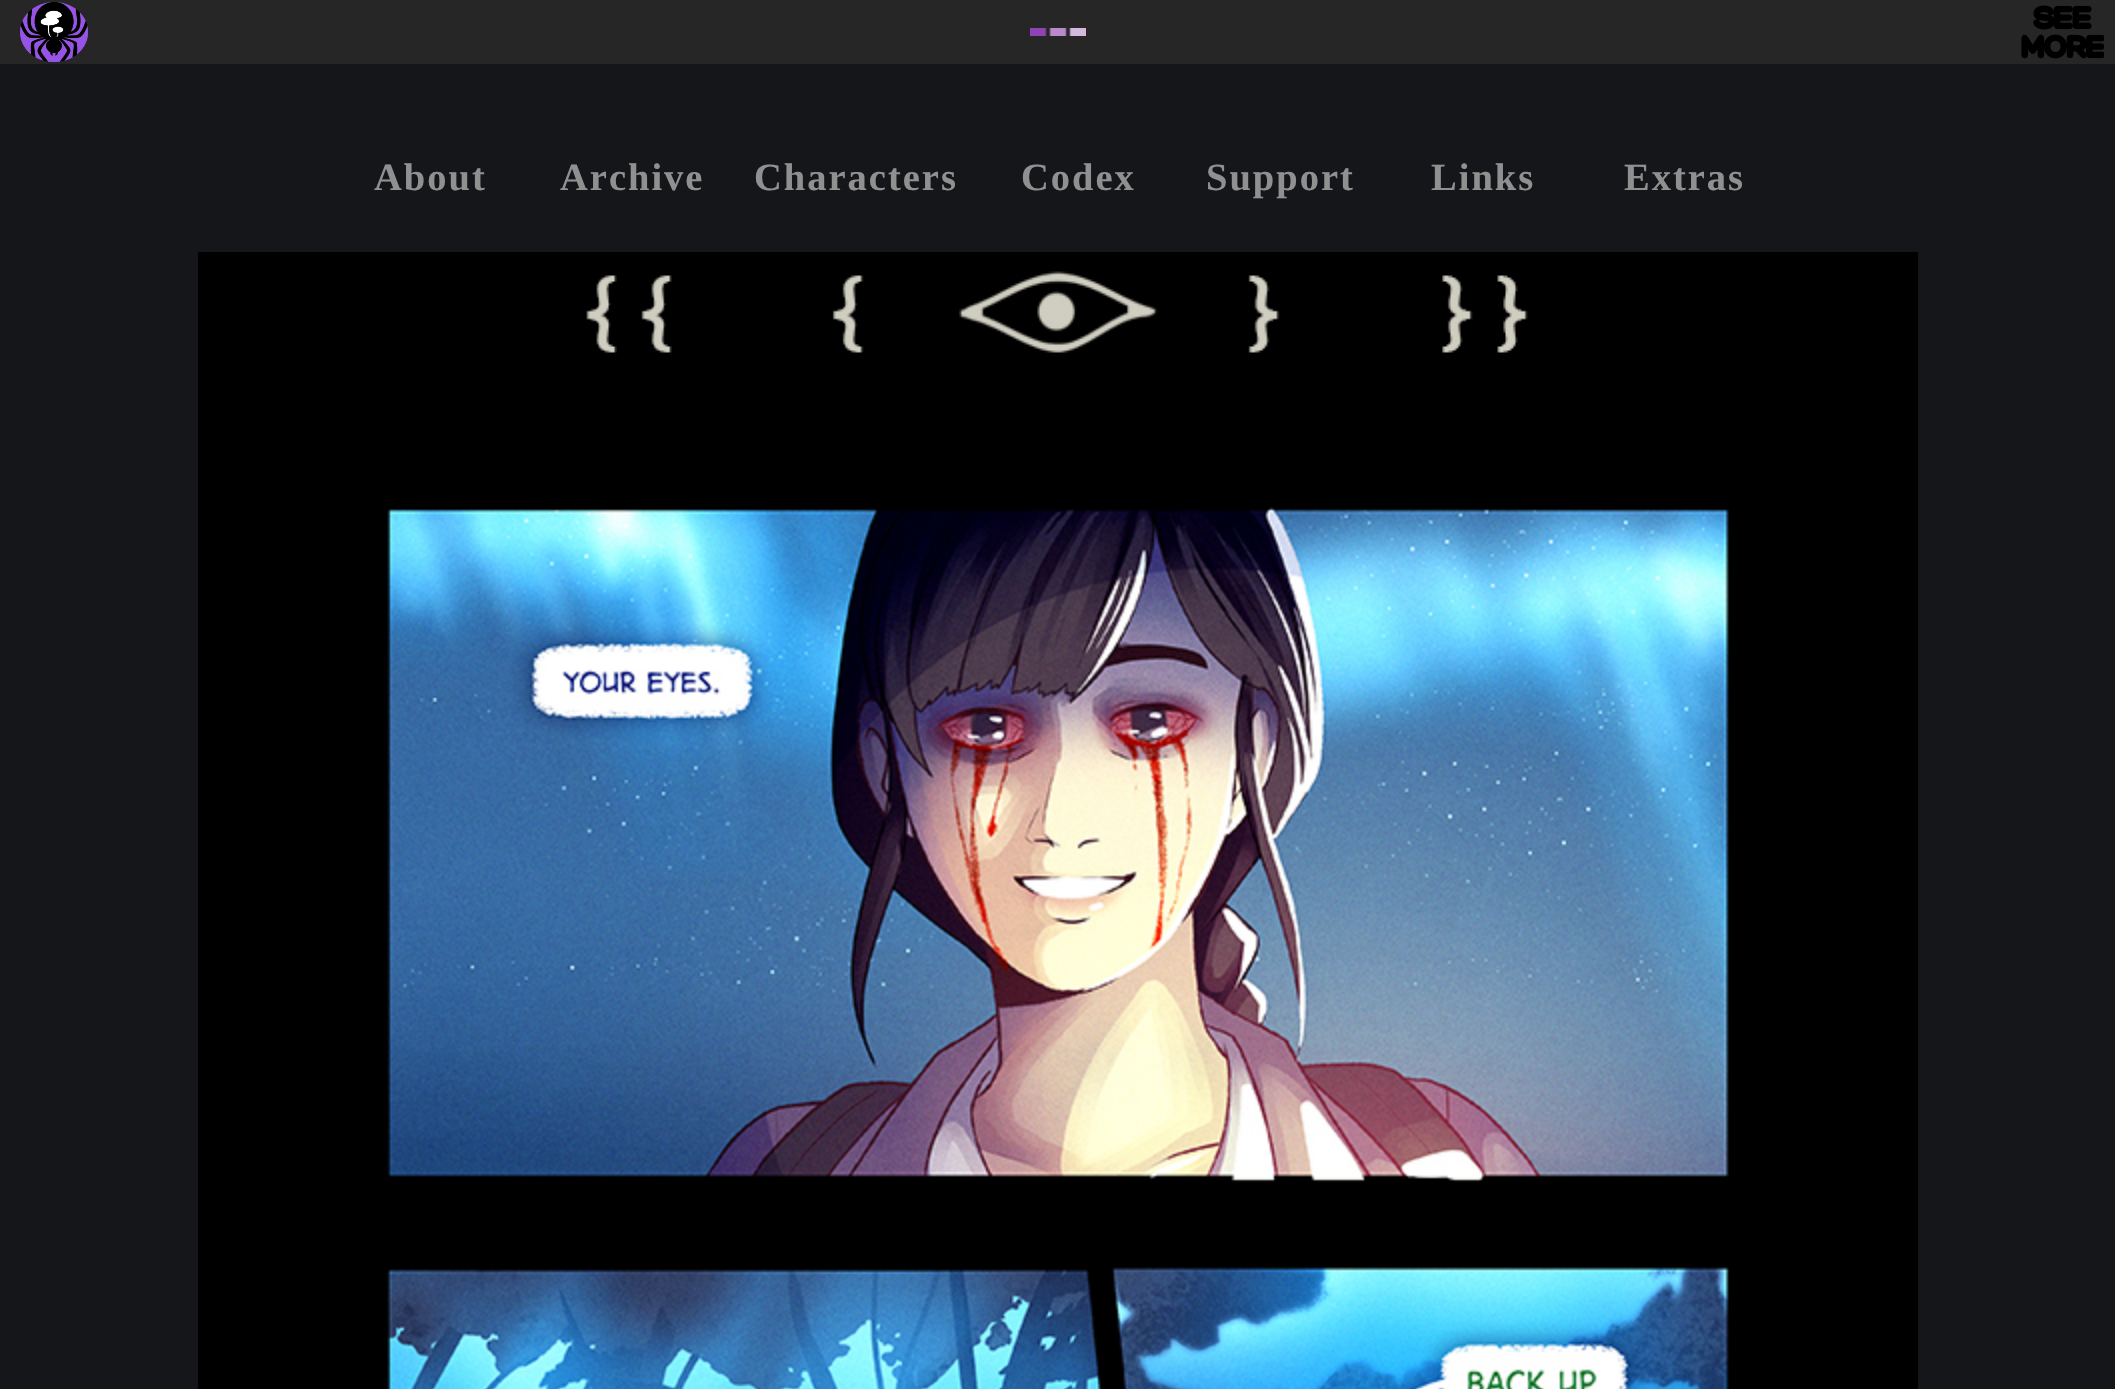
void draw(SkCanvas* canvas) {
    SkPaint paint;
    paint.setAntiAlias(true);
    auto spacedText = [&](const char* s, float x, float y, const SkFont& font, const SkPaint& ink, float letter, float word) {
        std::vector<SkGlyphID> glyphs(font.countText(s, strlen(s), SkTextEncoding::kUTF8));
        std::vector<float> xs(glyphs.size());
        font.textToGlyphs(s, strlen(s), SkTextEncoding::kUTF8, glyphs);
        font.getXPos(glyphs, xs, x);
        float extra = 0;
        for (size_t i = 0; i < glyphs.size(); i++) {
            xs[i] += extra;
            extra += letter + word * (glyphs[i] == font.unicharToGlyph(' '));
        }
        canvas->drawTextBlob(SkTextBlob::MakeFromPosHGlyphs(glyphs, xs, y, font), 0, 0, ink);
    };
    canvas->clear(0xFF15161A);
    paint.setColor(0xFF262626);
    canvas->drawRect(SkRect::MakeXYWH(0, 0, 2115, 64), paint);
    canvas->drawImageRect(SkImages::DeferredFromEncodedData(SkData::MakeFromFileName("img1.png")), SkRect::MakeXYWH(20, 2, 68, 60), SkSamplingOptions());
    canvas->drawImageRect(SkImages::DeferredFromEncodedData(SkData::MakeFromFileName("img2.png")), SkRect::MakeXYWH(1030, 28, 56, 8), SkSamplingOptions());
    canvas->drawImageRect(SkImages::DeferredFromEncodedData(SkData::MakeFromFileName("img3.png")), SkRect::MakeXYWH(2021, 5, 83, 54), SkSamplingOptions());
    SkFont font1(fontMgr->matchFamilyStyle("Liberation Serif", SkFontStyle::Bold()), 38.5f);
    font1.setSubpixel(true);
    paint.setColor(0xFF909090);
    spacedText("About", 374, 190, font1, paint, 2, 0);
    spacedText("Archive", 560, 190, font1, paint, 2, 0);
    spacedText("Characters", 754, 190, font1, paint, 2, 0);
    spacedText("Codex", 1021, 190, font1, paint, 2, 0);
    spacedText("Support", 1206, 190, font1, paint, 2, 0);
    spacedText("Links", 1431, 190, font1, paint, 2, 0);
    spacedText("Extras", 1624, 190, font1, paint, 2, 0);
    paint.setColor(0xFF000000);
    canvas->drawRect(SkRect::MakeXYWH(198, 252, 1720, 1137), paint);
    canvas->drawImageRect(SkImages::DeferredFromEncodedData(SkData::MakeFromFileName("img4.png")), SkRect::MakeXYWH(586, 275, 86, 78), SkSamplingOptions());
    canvas->drawImageRect(SkImages::DeferredFromEncodedData(SkData::MakeFromFileName("img5.png")), SkRect::MakeXYWH(832, 275, 32, 78), SkSamplingOptions());
    canvas->drawImageRect(SkImages::DeferredFromEncodedData(SkData::MakeFromFileName("img6.png")), SkRect::MakeXYWH(959, 271, 199, 82), SkSamplingOptions());
    canvas->drawImageRect(SkImages::DeferredFromEncodedData(SkData::MakeFromFileName("img7.png")), SkRect::MakeXYWH(1248, 275, 32, 78), SkSamplingOptions());
    canvas->drawImageRect(SkImages::DeferredFromEncodedData(SkData::MakeFromFileName("img8.png")), SkRect::MakeXYWH(1442, 275, 86, 78), SkSamplingOptions());
    canvas->drawImageRect(SkImages::DeferredFromEncodedData(SkData::MakeFromFileName("img9.png")), SkRect::MakeXYWH(387, 507, 1342, 882), SkSamplingOptions());
}
